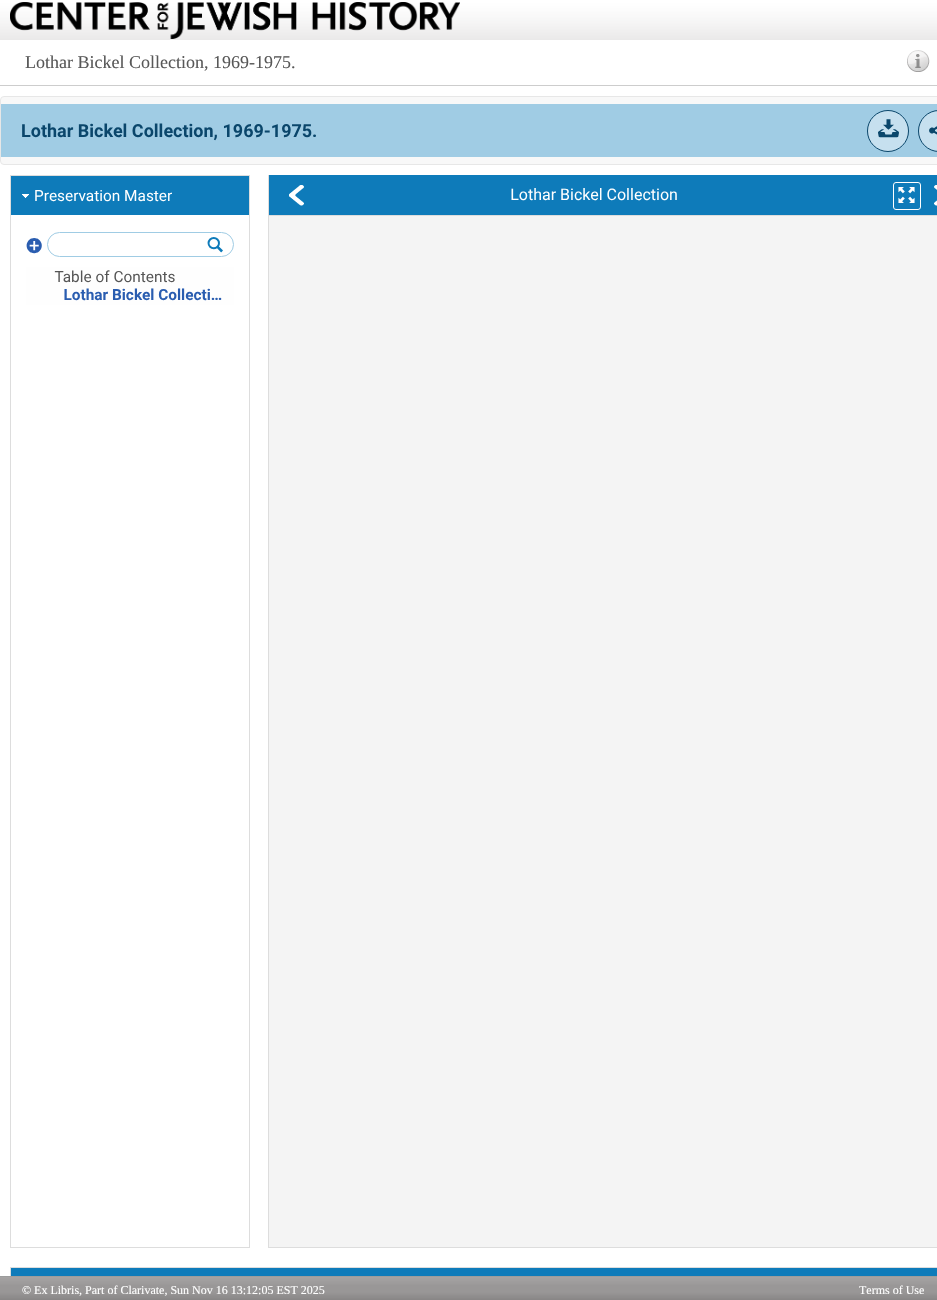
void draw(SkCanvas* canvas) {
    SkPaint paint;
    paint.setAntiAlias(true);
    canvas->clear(0xFFFFFFFF);
    canvas->drawImageRect(SkImages::DeferredFromEncodedData(SkData::MakeFromFileName("img1.png")), SkRect::MakeXYWH(0, 0, 937, 40), SkSamplingOptions());
    canvas->drawImageRect(SkImages::DeferredFromEncodedData(SkData::MakeFromFileName("img2.png")), SkRect::MakeXYWH(10, 2, 450, 37), SkSamplingOptions());
    SkFont font1(fontMgr->matchFamilyStyle("Liberation Serif", SkFontStyle::Normal()), 18);
    font1.setSubpixel(true);
    paint.setColor(0xFF585858);
    canvas->drawString("Lothar Bickel Collection, 1969-1975.", 25, 68, font1, paint);
    canvas->drawImageRect(SkImages::DeferredFromEncodedData(SkData::MakeFromFileName("img3.png")), SkRect::MakeXYWH(907, 50, 23, 22), SkSamplingOptions());
    paint.setColor(0xFFCDCDCD);
    canvas->drawRect(SkRect::MakeXYWH(0, 85, 937, 1), paint);
    canvas->drawImageRect(SkImages::DeferredFromEncodedData(SkData::MakeFromFileName("img4.png")), SkRect::MakeXYWH(0, 96, 937, 1180), SkSamplingOptions());
    paint.setColor(0xFF999797);
    canvas->drawRect(SkRect::MakeXYWH(0, 1277, 937, 23), paint);
    canvas->drawImageRect(SkImages::DeferredFromEncodedData(SkData::MakeFromFileName("img5.png")), SkRect::MakeXYWH(0, 1276, 937, 24), SkSamplingOptions());
    SkFont font2(fontMgr->matchFamilyStyle("Liberation Serif", SkFontStyle::Normal()), 12);
    font2.setSubpixel(true);
    paint.setColor(0xFFFFFFFF);
    canvas->drawString("© Ex Libris, Part of Clarivate, Sun Nov 16 13:12:05 EST 2025", 22, 1294, font2, paint);
    canvas->drawString("Terms of Use", 859, 1294, font2, paint);
}
